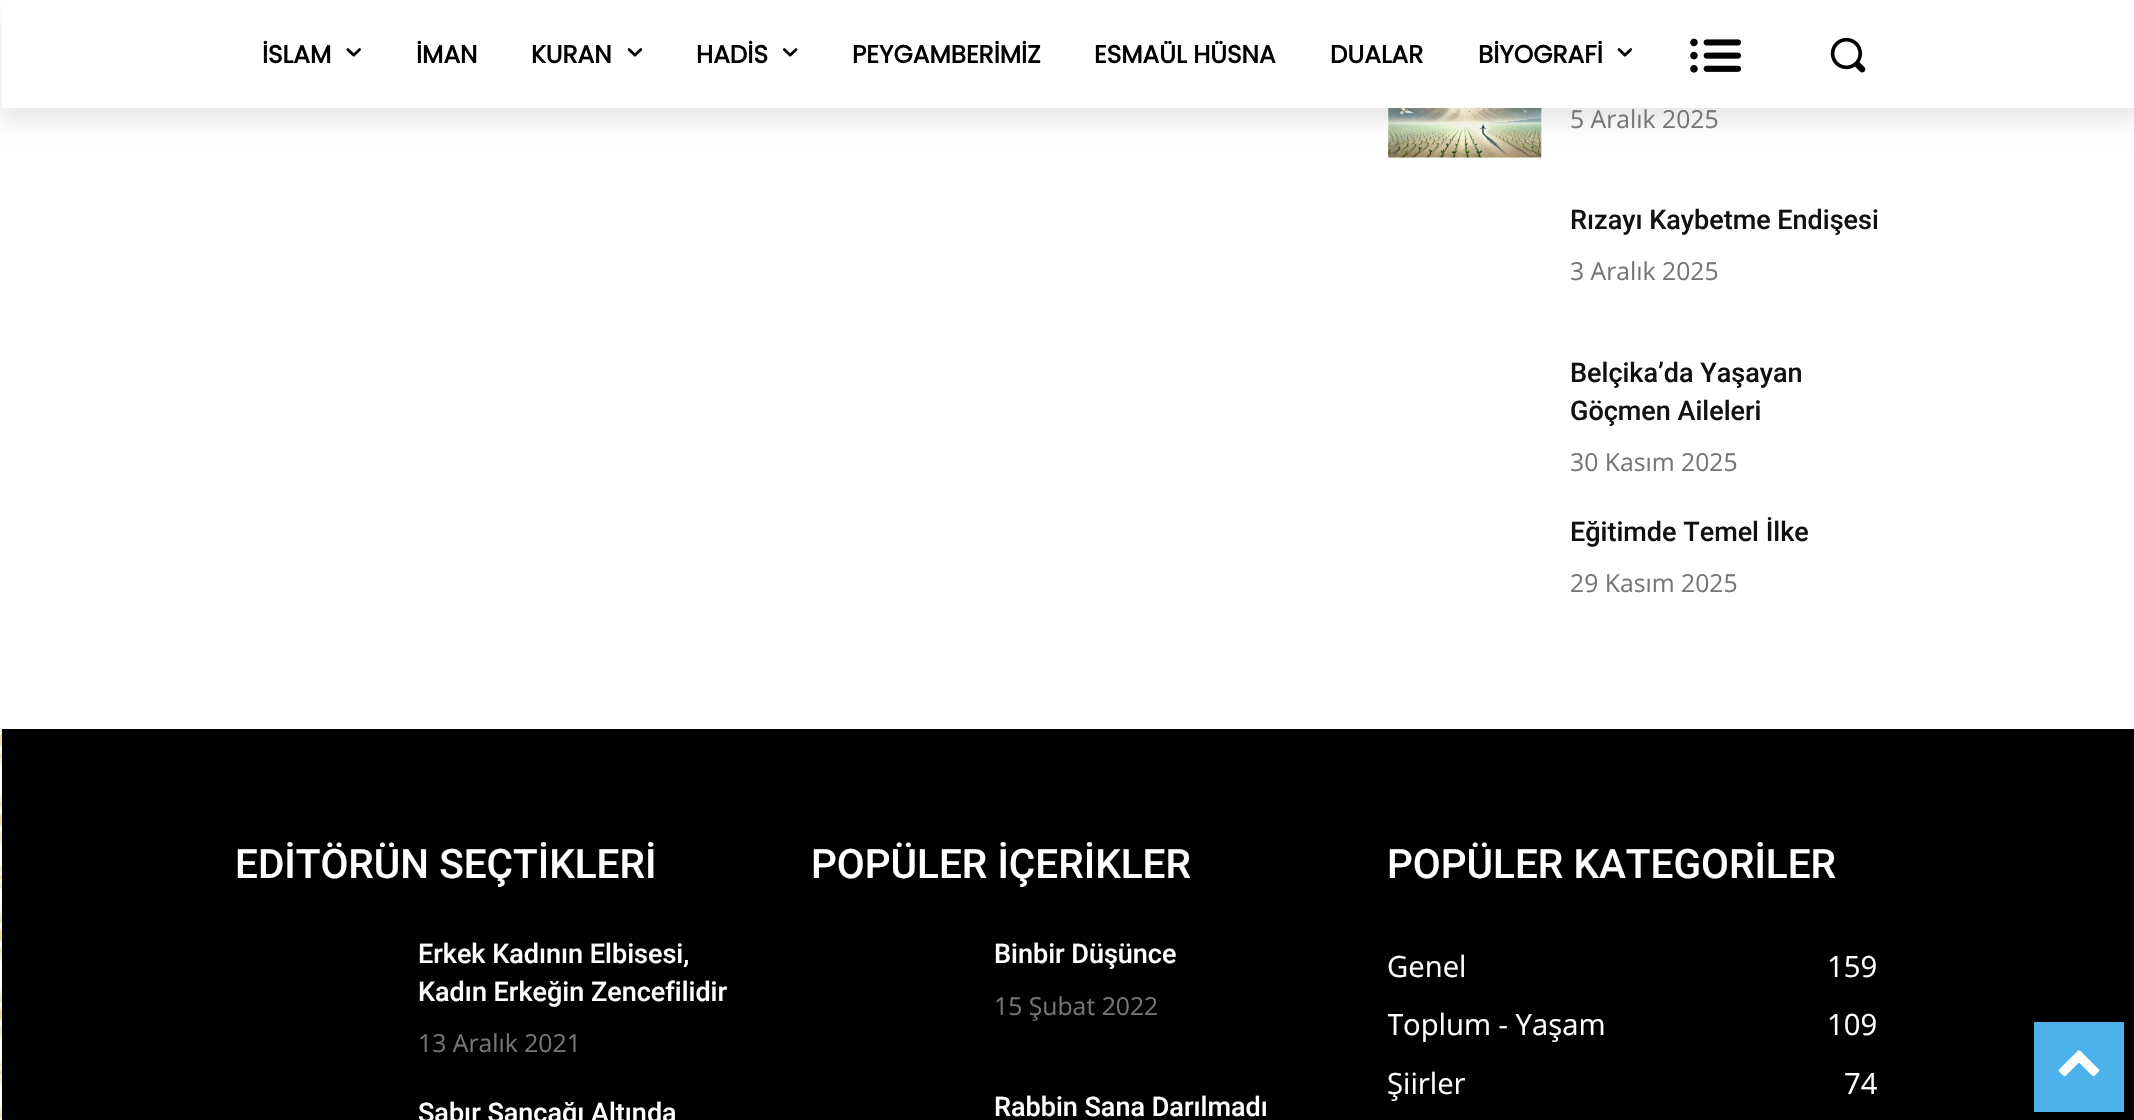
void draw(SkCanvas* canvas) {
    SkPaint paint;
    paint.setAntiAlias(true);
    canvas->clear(0xFFFFFFFF);
    canvas->drawImageRect(SkImages::DeferredFromEncodedData(SkData::MakeFromFileName("img1.png")), SkRect::MakeXYWH(0, 729, 2, 391), SkSamplingOptions());
    canvas->drawImageRect(SkImages::DeferredFromEncodedData(SkData::MakeFromFileName("img7.png")), SkRect::MakeXYWH(1388, 108, 154, 50), SkSamplingOptions());
    canvas->save();
    canvas->clipPath(SkPathBuilder(SkPathFillType::kEvenOdd).moveTo(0, 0).lineTo(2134, 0).lineTo(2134, 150).lineTo(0, 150).close().moveTo(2, 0).lineTo(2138, 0).lineTo(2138, 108).lineTo(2, 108).close().detach(), true);
    paint.setColor(0x17000000);
    paint.setMaskFilter(SkMaskFilter::MakeBlur(kNormal_SkBlurStyle, 9));
    canvas->drawRect(SkRect::MakeXYWH(2, 14, 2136, 108), paint);
    paint.setMaskFilter(nullptr);
    canvas->restore();
    SkFont font1(fontMgr->matchFamilyStyle("Poppins", SkFontStyle::Bold()), 24.75f);
    font1.setSubpixel(true);
    paint.setColor(0xFF000000);
    canvas->drawString("İSLAM", 262, 63, font1, paint);
    canvas->drawImageRect(SkImages::DeferredFromEncodedData(SkData::MakeFromFileName("img2.png")), SkRect::MakeXYWH(346, 48, 15, 9), SkSamplingOptions());
    canvas->drawString("İMAN", 416, 63, font1, paint);
    canvas->drawString("KURAN", 531, 63, font1, paint);
    canvas->drawImageRect(SkImages::DeferredFromEncodedData(SkData::MakeFromFileName("img3.png")), SkRect::MakeXYWH(627, 48, 16, 9), SkSamplingOptions());
    canvas->drawString("HADİS", 696, 63, font1, paint);
    canvas->drawImageRect(SkImages::DeferredFromEncodedData(SkData::MakeFromFileName("img4.png")), SkRect::MakeXYWH(783, 48, 15, 9), SkSamplingOptions());
    canvas->drawString("PEYGAMBERİMİZ", 852, 63, font1, paint);
    canvas->drawString("ESMAÜL HÜSNA", 1094, 63, font1, paint);
    canvas->drawString("DUALAR", 1330, 63, font1, paint);
    canvas->drawString("BİYOGRAFİ", 1478, 63, font1, paint);
    canvas->drawImageRect(SkImages::DeferredFromEncodedData(SkData::MakeFromFileName("img3.png")), SkRect::MakeXYWH(1617, 48, 16, 9), SkSamplingOptions());
    canvas->drawImageRect(SkImages::DeferredFromEncodedData(SkData::MakeFromFileName("img5.png")), SkRect::MakeXYWH(1690, 38, 52, 35), SkSamplingOptions());
    canvas->drawImageRect(SkImages::DeferredFromEncodedData(SkData::MakeFromFileName("img6.png")), SkRect::MakeXYWH(1830, 37, 36, 36), SkSamplingOptions());
    SkFont font2(fontMgr->matchFamilyStyle("Open Sans", SkFontStyle::Normal()), 24.75f);
    font2.setSubpixel(true);
    paint.setColor(0xFF767676);
    canvas->drawString("5 Aralık 2025", 1570, 128, font2, paint);
    SkFont font3(fontMgr->matchFamilyStyle("Roboto", SkFontStyle(500, SkFontStyle::kNormal_Width, SkFontStyle::kUpright_Slant)), 27);
    font3.setSubpixel(true);
    paint.setColor(0xFF111111);
    canvas->drawString("Rızayı Kaybetme Endişesi", 1570, 229, font3, paint);
    paint.setColor(0xFF767676);
    canvas->drawString("3 Aralık 2025", 1570, 280, font2, paint);
    paint.setColor(0xFF111111);
    canvas->drawString("Belçika’da Yaşayan", 1570, 382, font3, paint);
    canvas->drawString("Göçmen Aileleri", 1570, 420, font3, paint);
    paint.setColor(0xFF767676);
    canvas->drawString("30 Kasım 2025", 1570, 471, font2, paint);
    paint.setColor(0xFF111111);
    canvas->drawString("Eğitimde Temel İlke", 1570, 541, font3, paint);
    paint.setColor(0xFF767676);
    canvas->drawString("29 Kasım 2025", 1570, 592, font2, paint);
    paint.setColor(0xFF000000);
    canvas->drawRect(SkRect::MakeXYWH(2, 729, 2132, 391), paint);
    SkFont font4(fontMgr->matchFamilyStyle("Roboto", SkFontStyle(500, SkFontStyle::kNormal_Width, SkFontStyle::kUpright_Slant)), 40.5f);
    font4.setSubpixel(true);
    paint.setColor(0xFFFFFFFF);
    canvas->drawString("EDİTÖRÜN SEÇTİKLERİ", 235, 878, font4, paint);
    canvas->drawString("Erkek Kadının Elbisesi,", 418, 963, font3, paint);
    canvas->drawString("Kadın Erkeğin Zencefilidir", 418, 1001, font3, paint);
    paint.setColor(0xFF767676);
    canvas->drawString("13 Aralık 2021", 418, 1052, font2, paint);
    paint.setColor(0xFFFFFFFF);
    canvas->drawString("Sabır Sancağı Altında", 418, 1122, font3, paint);
    canvas->drawString("POPÜLER İÇERİKLER", 811, 878, font4, paint);
    canvas->drawString("Binbir Düşünce", 994, 963, font3, paint);
    paint.setColor(0xFF767676);
    canvas->drawString("15 Şubat 2022", 994, 1015, font2, paint);
    paint.setColor(0xFFFFFFFF);
    canvas->drawString("Rabbin Sana Darılmadı", 994, 1116, font3, paint);
    canvas->drawString("POPÜLER KATEGORİLER", 1387, 878, font4, paint);
    SkFont font5(fontMgr->matchFamilyStyle("Open Sans", SkFontStyle::Normal()), 29.25f);
    font5.setSubpixel(true);
    canvas->drawString("Genel", 1387, 977, font5, paint);
    canvas->drawString("159", 1827, 977, font5, paint);
    canvas->save();
    canvas->clipRect(SkRect::MakeXYWH(1388, 828, 513, 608));
    canvas->drawString("Toplum - Yaşam", 1387, 1035, font5, paint);
    canvas->restore();
    canvas->drawString("109", 1827, 1035, font5, paint);
    canvas->drawString("Şiirler", 1387, 1094, font5, paint);
    canvas->drawString("74", 1844, 1094, font5, paint);
    paint.setColor(0xFF4DB2EC);
    canvas->drawRect(SkRect::MakeXYWH(2034, 1022, 90, 90), paint);
    canvas->drawImageRect(SkImages::DeferredFromEncodedData(SkData::MakeFromFileName("img8.png")), SkRect::MakeXYWH(2058, 1050, 42, 27), SkSamplingOptions());
}
